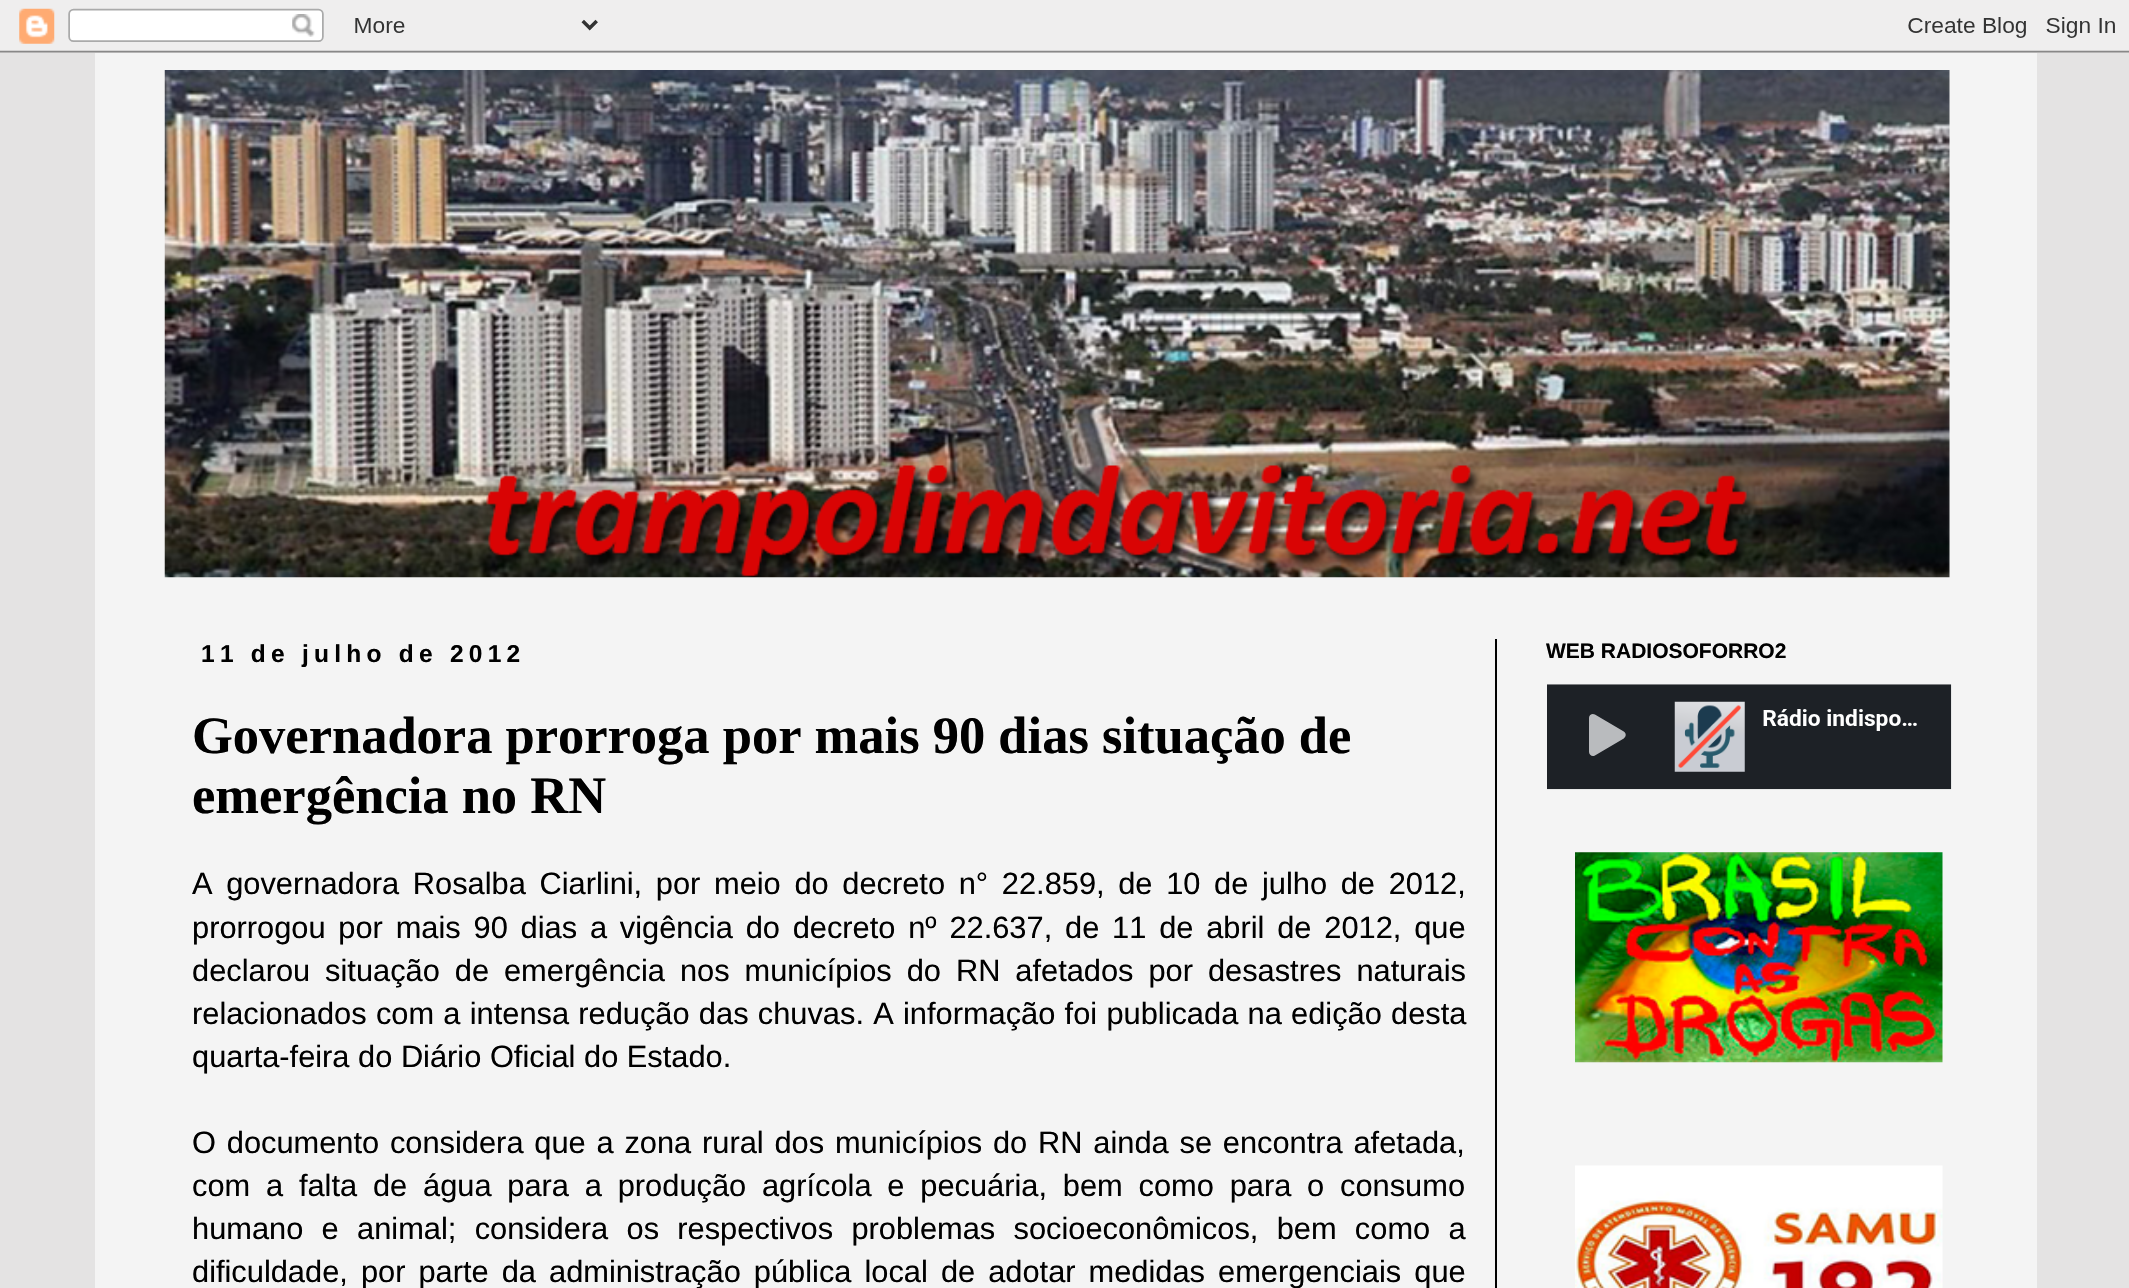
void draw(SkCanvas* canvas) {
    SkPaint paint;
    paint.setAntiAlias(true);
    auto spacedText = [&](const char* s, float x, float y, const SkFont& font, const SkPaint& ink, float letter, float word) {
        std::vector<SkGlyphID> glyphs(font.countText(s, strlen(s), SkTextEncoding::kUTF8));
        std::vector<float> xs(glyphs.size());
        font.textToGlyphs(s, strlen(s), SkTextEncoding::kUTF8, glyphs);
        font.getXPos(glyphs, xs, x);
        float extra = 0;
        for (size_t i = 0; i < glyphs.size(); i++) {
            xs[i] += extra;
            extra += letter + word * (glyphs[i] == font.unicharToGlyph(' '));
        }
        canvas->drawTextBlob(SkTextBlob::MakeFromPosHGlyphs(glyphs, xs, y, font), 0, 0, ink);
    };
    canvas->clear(0xFFE4E3E3);
    canvas->drawImageRect(SkImages::DeferredFromEncodedData(SkData::MakeFromFileName("img1.png")), SkRect::MakeXYWH(0, 0, 2129, 53), SkSamplingOptions());
    paint.setColor(0xFFF4F4F4);
    canvas->drawRect(SkRect::MakeXYWH(95, 53, 1942, 1235), paint);
    canvas->drawImageRect(SkImages::DeferredFromEncodedData(SkData::MakeFromFileName("img2.png")), SkRect::MakeXYWH(164, 70, 1786, 508), SkSamplingOptions());
    paint.setColor(0xFF000000);
    canvas->drawRect(SkRect::MakeXYWH(1495, 639, 2, 649), paint);
    SkFont font1(fontMgr->matchFamilyStyle("Liberation Sans", SkFontStyle::Bold()), 24.5f);
    font1.setSubpixel(true);
    spacedText("11 de julho de 2012", 201, 662, font1, paint, 5.25f, 0);
    SkFont font2(fontMgr->matchFamilyStyle("Liberation Serif", SkFontStyle::Bold()), 52.5f);
    font2.setSubpixel(true);
    canvas->drawString("Governadora prorroga por mais 90 dias situação de", 192, 753, font2, paint);
    canvas->drawString("emergência no RN", 192, 813, font2, paint);
    SkFont font3(fontMgr->matchFamilyStyle("Liberation Sans", SkFontStyle::Normal()), 30.8f);
    font3.setSubpixel(true);
    spacedText("A governadora Rosalba Ciarlini, por meio do decreto n° 22.859, de 10 de julho de 2012,", 192, 894, font3, paint, 0, 5.1f);
    spacedText("prorrogou por mais 90 dias a vigência do decreto nº 22.637, de 11 de abril de 2012, que", 192, 938, font3, paint, 0, 4.25f);
    spacedText("declarou situação de emergência nos municípios do RN afetados por desastres naturais", 192, 981, font3, paint, 0, 6.4f);
    spacedText("relacionados com a intensa redução das chuvas. A informação foi publicada na edição desta", 192, 1024, font3, paint, 0, 0.7f);
    canvas->drawString("quarta-feira do Diário Oficial do Estado.", 192, 1067, font3, paint);
    spacedText("O documento considera que a zona rural dos municípios do RN ainda se encontra afetada,", 192, 1153, font3, paint, 0, 2.25f);
    spacedText("com a falta de água para a produção agrícola e pecuária, bem como para o consumo", 192, 1196, font3, paint, 0, 7.25f);
    spacedText("humano e animal; considera os respectivos problemas socioeconômicos, bem como a", 192, 1239, font3, paint, 0, 9.75f);
    spacedText("dificuldade, por parte da administração pública local de adotar medidas emergenciais que", 192, 1282, font3, paint, 0, 4.5f);
    SkFont font4(fontMgr->matchFamilyStyle("Liberation Sans", SkFontStyle::Bold()), 21);
    font4.setSubpixel(true);
    canvas->drawString("WEB RADIOSOFORRO2", 1546, 658, font4, paint);
    canvas->drawImageRect(SkImages::DeferredFromEncodedData(SkData::MakeFromFileName("img3.png")), SkRect::MakeXYWH(1547, 684, 405, 106), SkSamplingOptions());
    canvas->drawImageRect(SkImages::DeferredFromEncodedData(SkData::MakeFromFileName("img4.png")), SkRect::MakeXYWH(1575, 852, 368, 211), SkSamplingOptions());
    canvas->drawImageRect(SkImages::DeferredFromEncodedData(SkData::MakeFromFileName("img5.png")), SkRect::MakeXYWH(1575, 1165, 368, 123), SkSamplingOptions());
}
